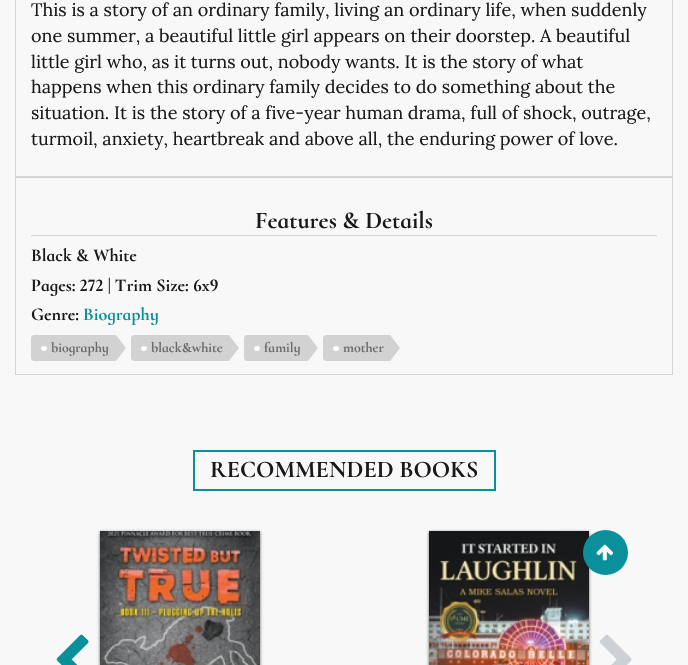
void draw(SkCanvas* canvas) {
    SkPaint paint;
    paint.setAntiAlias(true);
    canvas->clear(0xFFF8F8F8);
    paint.setStyle(SkPaint::kStroke_Style);
    paint.setStrokeWidth(1);
    paint.setColor(0xFFD4D4D4);
    canvas->drawRect(SkRect::MakeXYWH(15.5f, -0.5f, 657, 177), paint);
    SkFont font1(fontMgr->matchFamilyStyle("Lora", SkFontStyle::Normal()), 18);
    font1.setSubpixel(true);
    paint.setStyle(SkPaint::kFill_Style);
    paint.setColor(0xFF191919);
    canvas->drawString("This is a story of an ordinary family, living an ordinary life, when suddenly", 31, 16, font1, paint);
    canvas->drawString("one summer, a beautiful little girl appears on their doorstep. A beautiful", 31, 42, font1, paint);
    canvas->drawString("little girl who, as it turns out, nobody wants. It is the story of what", 31, 68, font1, paint);
    canvas->drawString("happens when this ordinary family decides to do something about the", 31, 93, font1, paint);
    canvas->drawString("situation. It is the story of a five-year human drama, full of shock, outrage,", 31, 119, font1, paint);
    canvas->drawString("turmoil, anxiety, heartbreak and above all, the enduring power of love.", 31, 145, font1, paint);
    paint.setStyle(SkPaint::kStroke_Style);
    paint.setColor(0xFFD4D4D4);
    canvas->drawRect(SkRect::MakeXYWH(15.5f, 177.5f, 657, 197), paint);
    paint.setStyle(SkPaint::kFill_Style);
    canvas->drawRect(SkRect::MakeXYWH(31, 235, 626, 1), paint);
    SkFont font2(fontMgr->matchFamilyStyle("Cormorant Infant", SkFontStyle::Bold()), 24);
    font2.setSubpixel(true);
    paint.setColor(0xFF191919);
    canvas->drawString("Features & Details", 255, 228, font2, paint);
    SkFont font3(fontMgr->matchFamilyStyle("Cormorant Infant", SkFontStyle::Bold()), 18);
    font3.setSubpixel(true);
    canvas->drawString("Black & White", 31, 261, font3, paint);
    canvas->drawString("Pages: 272 | Trim Size: 6x9", 31, 291, font3, paint);
    canvas->drawString("Genre:", 31, 320, font3, paint);
    paint.setColor(0xFF0A909B);
    canvas->drawString("Biography", 83, 320, font3, paint);
    paint.setColor(0xFFD2D2D2);
    canvas->drawPath(SkPathBuilder().moveTo(34, 335).lineTo(116, 335).lineTo(116, 361).lineTo(34, 361).cubicTo(32.5f, 361, 31, 359.5f, 31, 358).lineTo(31, 338).cubicTo(31, 336.5f, 32.5f, 335, 34, 335).close().detach(), paint);
    paint.setColor(0xFFFFFFFF);
    canvas->drawCircle(44, 348, 3, paint);
    paint.setColor(0x40000000);
    canvas->drawPath(SkPathBuilder().moveTo(44, 346).cubicTo(46, 346, 47, 347, 47, 348.5f).cubicTo(47.5f, 344, 40.5f, 344, 41, 348.5f).cubicTo(41, 347, 42, 346, 44, 346).close().detach(), paint);
    SkFont font4(fontMgr->matchFamilyStyle("Cormorant Infant", SkFontStyle::Bold()), 14);
    font4.setSubpixel(true);
    paint.setColor(0xFF696969);
    canvas->drawString("biography", 51, 352, font4, paint);
    paint.setColor(0xFFD2D2D2);
    canvas->drawPath(SkPathBuilder().moveTo(116, 361).lineTo(116, 335).lineTo(126, 348).close().detach(), paint);
    canvas->drawPath(SkPathBuilder().moveTo(134, 335).lineTo(229, 335).lineTo(229, 361).lineTo(134, 361).cubicTo(132.5f, 361, 131, 359.5f, 131, 358).lineTo(131, 338).cubicTo(131, 336.5f, 132.5f, 335, 134, 335).close().detach(), paint);
    paint.setColor(0xFFFFFFFF);
    canvas->drawCircle(144, 348, 3, paint);
    paint.setColor(0x40000000);
    canvas->drawPath(SkPathBuilder().moveTo(144, 346).cubicTo(146, 346, 147, 347, 147, 348.5f).cubicTo(147.5f, 344, 140.5f, 344, 141, 348.5f).cubicTo(141, 347, 142, 346, 144, 346).close().detach(), paint);
    paint.setColor(0xFF696969);
    canvas->drawString("black&white", 151, 352, font4, paint);
    paint.setColor(0xFFD2D2D2);
    canvas->drawPath(SkPathBuilder().moveTo(229, 361).lineTo(229, 335).lineTo(239, 348).close().detach(), paint);
    canvas->drawPath(SkPathBuilder().moveTo(247, 335).lineTo(308, 335).lineTo(308, 361).lineTo(247, 361).cubicTo(245.5f, 361, 244, 359.5f, 244, 358).lineTo(244, 338).cubicTo(244, 336.5f, 245.5f, 335, 247, 335).close().detach(), paint);
    paint.setColor(0xFFFFFFFF);
    canvas->drawCircle(257, 348, 3, paint);
    paint.setColor(0x40000000);
    canvas->drawPath(SkPathBuilder().moveTo(257, 346).cubicTo(259, 346, 260, 347, 260, 348.5f).cubicTo(260.5f, 344, 253.5f, 344, 254, 348.5f).cubicTo(254, 347, 255, 346, 257, 346).close().detach(), paint);
    paint.setColor(0xFF696969);
    canvas->drawString("family", 264, 352, font4, paint);
    paint.setColor(0xFFD2D2D2);
    canvas->drawPath(SkPathBuilder().moveTo(308, 361).lineTo(308, 335).lineTo(318, 348).close().detach(), paint);
    canvas->drawPath(SkPathBuilder().moveTo(326, 335).lineTo(390, 335).lineTo(390, 361).lineTo(326, 361).cubicTo(324.5f, 361, 323, 359.5f, 323, 358).lineTo(323, 338).cubicTo(323, 336.5f, 324.5f, 335, 326, 335).close().detach(), paint);
    paint.setColor(0xFFFFFFFF);
    canvas->drawCircle(336, 348, 3, paint);
    paint.setColor(0x40000000);
    canvas->drawPath(SkPathBuilder().moveTo(336, 346).cubicTo(338, 346, 339, 347, 339, 348.5f).cubicTo(339.5f, 344, 332.5f, 344, 333, 348.5f).cubicTo(333, 347, 334, 346, 336, 346).close().detach(), paint);
    paint.setColor(0xFF696969);
    canvas->drawString("mother", 343, 352, font4, paint);
    paint.setColor(0xFFD2D2D2);
    canvas->drawPath(SkPathBuilder().moveTo(390, 361).lineTo(390, 335).lineTo(400, 348).close().detach(), paint);
    paint.setStyle(SkPaint::kStroke_Style);
    paint.setStrokeWidth(2);
    paint.setColor(0xFF0A909B);
    canvas->drawRect(SkRect::MakeXYWH(194, 451, 301, 39), paint);
    paint.setStyle(SkPaint::kFill_Style);
    paint.setColor(0xFF191919);
    canvas->drawString("RECOMMENDED BOOKS", 210, 477, font2, paint);
    canvas->drawImageRect(SkImages::DeferredFromEncodedData(SkData::MakeFromFileName("img1.png")), SkRect::MakeXYWH(56, 634, 33, 31), SkSamplingOptions());
    paint.setColor(0x9E000000);
    paint.setMaskFilter(SkMaskFilter::MakeBlur(kNormal_SkBlurStyle, 1.5f));
    canvas->drawRect(SkRect::MakeXYWH(100, 532, 160, 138), paint);
    paint.setMaskFilter(nullptr);
    canvas->drawImageRect(SkImages::DeferredFromEncodedData(SkData::MakeFromFileName("img2.png")), SkRect::MakeXYWH(100, 531, 160, 134), SkSamplingOptions());
    paint.setMaskFilter(SkMaskFilter::MakeBlur(kNormal_SkBlurStyle, 1.5f));
    canvas->drawRect(SkRect::MakeXYWH(429, 532, 160, 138), paint);
    paint.setMaskFilter(nullptr);
    canvas->drawImageRect(SkImages::DeferredFromEncodedData(SkData::MakeFromFileName("img3.png")), SkRect::MakeXYWH(429, 531, 160, 134), SkSamplingOptions());
    canvas->drawImageRect(SkImages::DeferredFromEncodedData(SkData::MakeFromFileName("img4.png")), SkRect::MakeXYWH(599, 634, 33, 31), SkSamplingOptions());
    paint.setColor(0xFF0A909B);
    canvas->drawCircle(605.5f, 552.5f, 22.5f, paint);
    canvas->drawImageRect(SkImages::DeferredFromEncodedData(SkData::MakeFromFileName("img5.png")), SkRect::MakeXYWH(596, 544, 17, 17), SkSamplingOptions());
}
